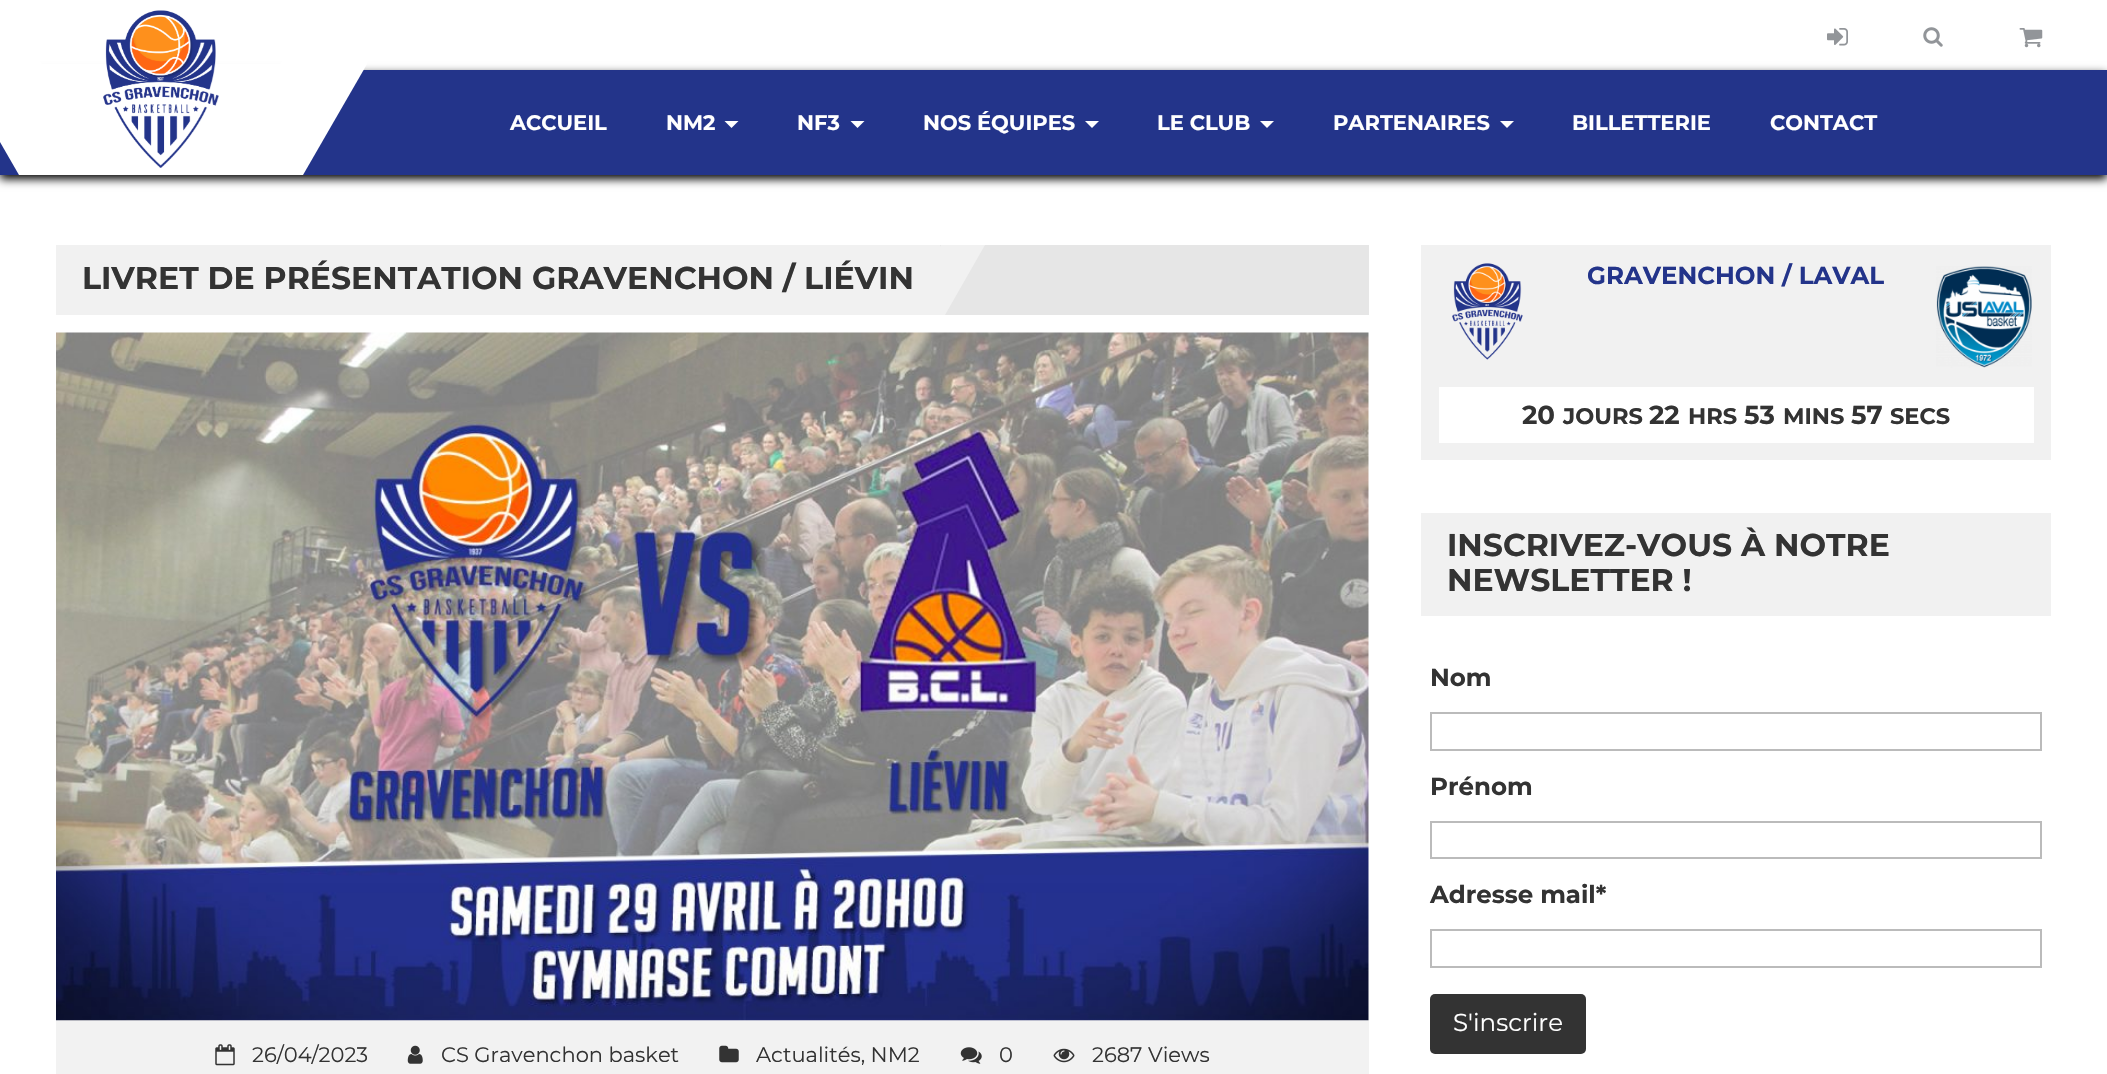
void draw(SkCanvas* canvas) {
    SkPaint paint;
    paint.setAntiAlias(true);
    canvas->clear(0xFFFFFFFF);
    paint.setColor(0xFF000000);
    paint.setMaskFilter(SkMaskFilter::MakeBlur(kNormal_SkBlurStyle, 4.5f));
    canvas->drawRect(SkRect::MakeXYWH(0, 74, 2107, 105), paint);
    paint.setMaskFilter(nullptr);
    paint.setColor(0xFF23348A);
    canvas->drawRect(SkRect::MakeXYWH(0, 70, 2107, 105), paint);
    paint.setColor(0xFFFFFFFF);
    canvas->drawRect(SkRect::MakeXYWH(30, 64, 262, 111), paint);
    canvas->drawPath(SkPathBuilder().moveTo(-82, 0).lineTo(5, 0).lineTo(107, 175).lineTo(19, 175).close().detach(), paint);
    canvas->drawPath(SkPathBuilder().moveTo(317, 0).lineTo(404, 0).lineTo(303, 175).lineTo(215, 175).close().detach(), paint);
    canvas->drawImageRect(SkImages::DeferredFromEncodedData(SkData::MakeFromFileName("img1.png")), SkRect::MakeXYWH(103, 10, 116, 158), SkSamplingOptions());
    canvas->drawImageRect(SkImages::DeferredFromEncodedData(SkData::MakeFromFileName("img2.png")), SkRect::MakeXYWH(1827, 28, 21, 18), SkSamplingOptions());
    canvas->drawImageRect(SkImages::DeferredFromEncodedData(SkData::MakeFromFileName("img3.png")), SkRect::MakeXYWH(1923, 27, 20, 20), SkSamplingOptions());
    canvas->drawImageRect(SkImages::DeferredFromEncodedData(SkData::MakeFromFileName("img4.png")), SkRect::MakeXYWH(2019, 28, 24, 20), SkSamplingOptions());
    SkFont font1(fontMgr->matchFamilyStyle("Montserrat", SkFontStyle::Bold()), 21);
    font1.setSubpixel(true);
    canvas->drawString("ACCUEIL", 510, 130, font1, paint);
    canvas->drawString("NM2", 666, 130, font1, paint);
    canvas->drawPath(SkPathBuilder().moveTo(724.5f, 121).lineTo(738.5f, 121).lineTo(731.5f, 128).close().detach(), paint);
    canvas->drawString("NF3", 797, 130, font1, paint);
    canvas->drawPath(SkPathBuilder().moveTo(850.5f, 121).lineTo(864.5f, 121).lineTo(857.5f, 128).close().detach(), paint);
    canvas->drawString("NOS ÉQUIPES", 923, 130, font1, paint);
    canvas->drawPath(SkPathBuilder().moveTo(1085, 121).lineTo(1099, 121).lineTo(1092, 128).close().detach(), paint);
    canvas->drawString("LE CLUB", 1157, 130, font1, paint);
    canvas->drawPath(SkPathBuilder().moveTo(1260, 121).lineTo(1274, 121).lineTo(1267, 128).close().detach(), paint);
    canvas->drawString("PARTENAIRES", 1333, 130, font1, paint);
    canvas->drawPath(SkPathBuilder().moveTo(1500, 121).lineTo(1514, 121).lineTo(1507, 128).close().detach(), paint);
    canvas->drawString("BILLETTERIE", 1572, 130, font1, paint);
    canvas->drawString("CONTACT", 1770, 130, font1, paint);
    paint.setColor(0xFFE6E6E6);
    canvas->drawRect(SkRect::MakeXYWH(940, 245, 429, 70), paint);
    paint.setColor(0xFFF1F1F1);
    canvas->drawRect(SkRect::MakeXYWH(56, 245, 884, 70), paint);
    SkFont font2(fontMgr->matchFamilyStyle("Montserrat", SkFontStyle::Bold()), 31.5f);
    font2.setSubpixel(true);
    paint.setColor(0xFF333333);
    canvas->drawString("LIVRET DE PRÉSENTATION GRAVENCHON / LIÉVIN", 82, 289, font2, paint);
    paint.setColor(0xFFF1F1F1);
    canvas->drawPath(SkPathBuilder().moveTo(941, 245).lineTo(985, 245).lineTo(945, 315).lineTo(901, 315).close().detach(), paint);
    paint.setColor(0xFFF2F2F2);
    canvas->drawRect(SkRect::MakeXYWH(56, 1020, 1313, 54), paint);
    canvas->drawImageRect(SkImages::DeferredFromEncodedData(SkData::MakeFromFileName("img5.png")), SkRect::MakeXYWH(56, 332, 1313, 689), SkSamplingOptions());
    canvas->drawImageRect(SkImages::DeferredFromEncodedData(SkData::MakeFromFileName("img6.png")), SkRect::MakeXYWH(215, 1044, 20, 22), SkSamplingOptions());
    SkFont font3(fontMgr->matchFamilyStyle("Montserrat", SkFontStyle::Normal()), 21);
    font3.setSubpixel(true);
    paint.setColor(0xFF333333);
    canvas->drawString("26/04/2023", 252, 1062, font3, paint);
    canvas->drawImageRect(SkImages::DeferredFromEncodedData(SkData::MakeFromFileName("img7.png")), SkRect::MakeXYWH(407, 1045, 16, 19), SkSamplingOptions());
    canvas->drawString("CS Gravenchon basket", 441, 1062, font3, paint);
    canvas->drawImageRect(SkImages::DeferredFromEncodedData(SkData::MakeFromFileName("img8.png")), SkRect::MakeXYWH(719, 1045, 20, 18), SkSamplingOptions());
    canvas->drawString("Actualités, NM2", 756, 1062, font3, paint);
    canvas->drawImageRect(SkImages::DeferredFromEncodedData(SkData::MakeFromFileName("img9.png")), SkRect::MakeXYWH(960, 1047, 22, 17), SkSamplingOptions());
    canvas->drawString("0", 999, 1062, font3, paint);
    canvas->drawImageRect(SkImages::DeferredFromEncodedData(SkData::MakeFromFileName("img10.png")), SkRect::MakeXYWH(1053, 1048, 22, 15), SkSamplingOptions());
    canvas->drawString("2687 Views", 1092, 1062, font3, paint);
    paint.setColor(0xFFF1F1F1);
    canvas->drawRect(SkRect::MakeXYWH(1421, 245, 630, 215), paint);
    canvas->drawImageRect(SkImages::DeferredFromEncodedData(SkData::MakeFromFileName("img11.png")), SkRect::MakeXYWH(1452, 263, 71, 97), SkSamplingOptions());
    SkFont font4(fontMgr->matchFamilyStyle("Montserrat", SkFontStyle::Bold()), 24.5f);
    font4.setSubpixel(true);
    paint.setColor(0xFF23348A);
    canvas->drawString("GRAVENCHON / LAVAL", 1587, 284, font4, paint);
    canvas->drawImageRect(SkImages::DeferredFromEncodedData(SkData::MakeFromFileName("img12.png")), SkRect::MakeXYWH(1936, 266, 96, 102), SkSamplingOptions());
    paint.setColor(0xFFFFFFFF);
    canvas->drawRect(SkRect::MakeXYWH(1439, 387, 595, 56), paint);
    SkFont font5(fontMgr->matchFamilyStyle("Montserrat", SkFontStyle::Bold()), 26);
    font5.setSubpixel(true);
    paint.setColor(0xFF333333);
    canvas->drawString("20", 1522, 424, font5, paint);
    SkFont font6(fontMgr->matchFamilyStyle("Montserrat", SkFontStyle::Bold()), 22.5f);
    font6.setSubpixel(true);
    canvas->drawString("JOURS", 1563, 424, font6, paint);
    canvas->drawString("22", 1649, 424, font5, paint);
    canvas->drawString("HRS", 1688, 424, font6, paint);
    canvas->drawString("53", 1744, 424, font5, paint);
    canvas->drawString("MINS", 1783, 424, font6, paint);
    canvas->drawString("57", 1851, 424, font5, paint);
    canvas->drawString("SECS", 1890, 424, font6, paint);
    paint.setColor(0xFFF1F1F1);
    canvas->drawRect(SkRect::MakeXYWH(1421, 513, 630, 103), paint);
    paint.setColor(0xFF333333);
    canvas->drawString("INSCRIVEZ-VOUS À NOTRE", 1447, 556, font2, paint);
    canvas->drawString("NEWSLETTER !", 1447, 591, font2, paint);
    canvas->drawString("Nom", 1430, 686, font4, paint);
    paint.setStyle(SkPaint::kStroke_Style);
    paint.setStrokeWidth(2);
    paint.setColor(0xFFBBBBBB);
    canvas->drawRect(SkRect::MakeXYWH(1431, 713, 610, 37), paint);
    paint.setStyle(SkPaint::kFill_Style);
    paint.setColor(0xFF333333);
    canvas->drawString("Prénom", 1430, 795, font4, paint);
    paint.setStyle(SkPaint::kStroke_Style);
    paint.setColor(0xFFBBBBBB);
    canvas->drawRect(SkRect::MakeXYWH(1431, 822, 610, 36), paint);
    paint.setStyle(SkPaint::kFill_Style);
    paint.setColor(0xFF333333);
    canvas->drawString("Adresse mail*", 1430, 903, font4, paint);
    paint.setStyle(SkPaint::kStroke_Style);
    paint.setColor(0xFFBBBBBB);
    canvas->drawRect(SkRect::MakeXYWH(1431, 930, 610, 37), paint);
    paint.setStyle(SkPaint::kFill_Style);
    paint.setColor(0xFF333333);
    canvas->drawRoundRect(SkRect::MakeXYWH(1430, 994, 156, 60), 5, 5, paint);
    SkFont font7(fontMgr->matchFamilyStyle("Montserrat", SkFontStyle::Normal()), 24.5f);
    font7.setSubpixel(true);
    paint.setColor(0xFFFFFFFF);
    canvas->drawString("S'inscrire", 1453, 1031, font7, paint);
}
